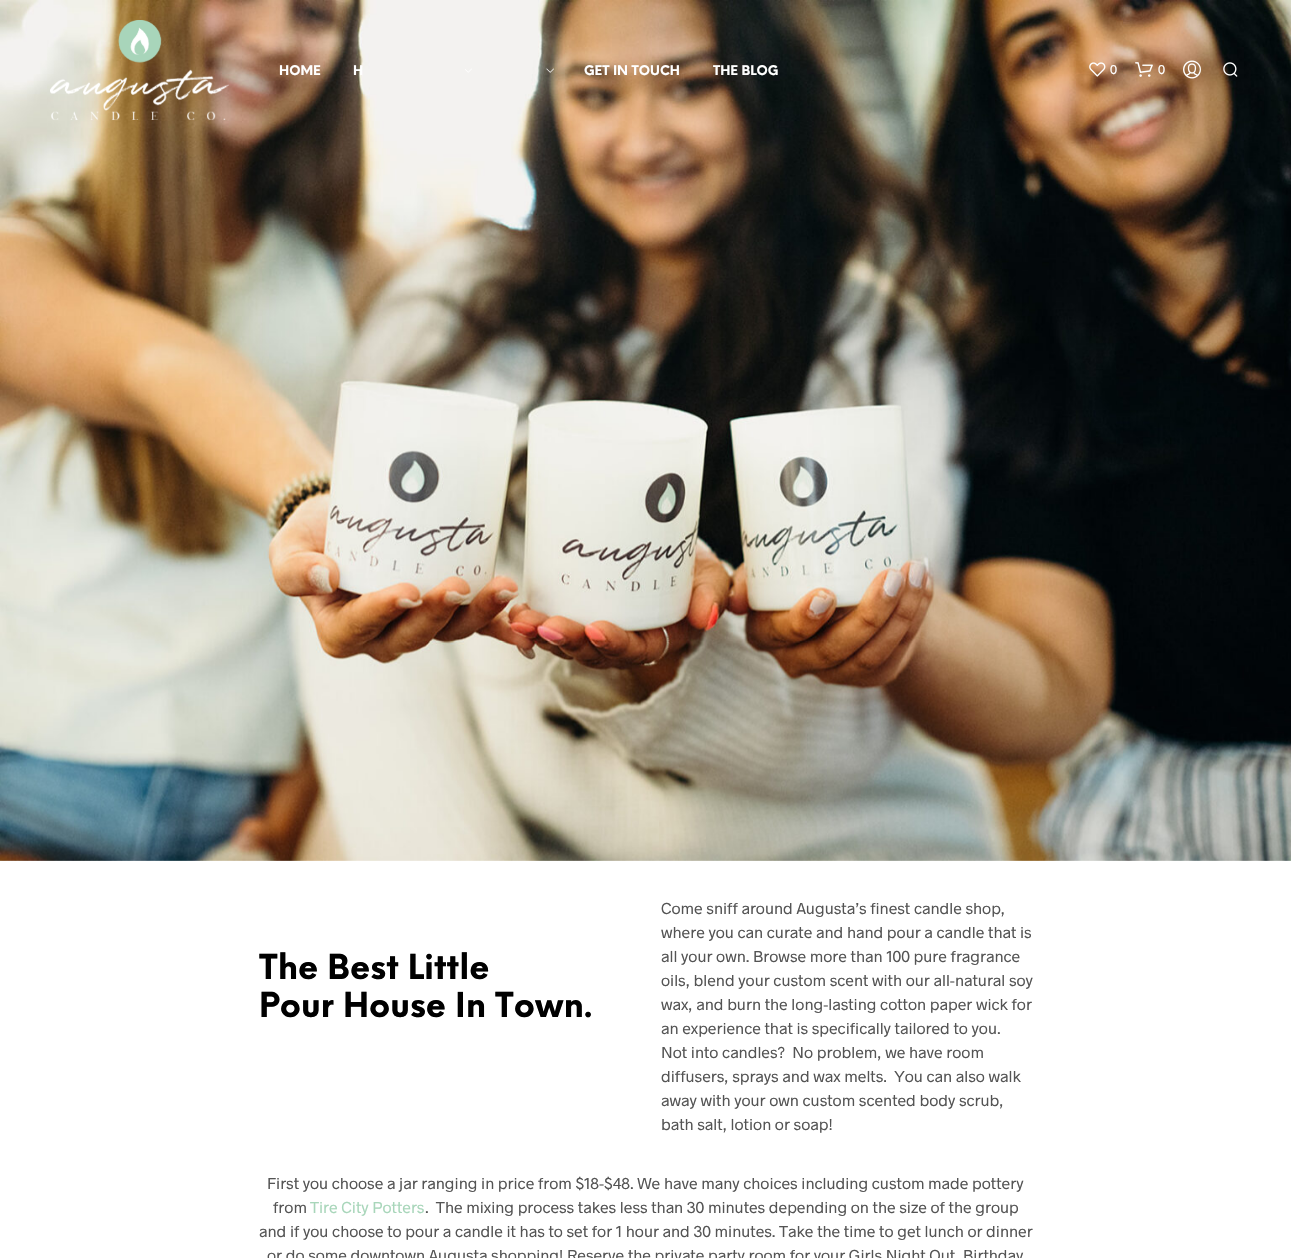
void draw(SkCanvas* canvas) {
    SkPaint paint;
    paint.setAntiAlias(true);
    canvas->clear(0xFFFFFFFF);
    canvas->drawImageRect(SkImages::DeferredFromEncodedData(SkData::MakeFromFileName("img8.png")), SkRect::MakeXYWH(0, 0, 1291, 861), SkSamplingOptions());
    canvas->drawImageRect(SkImages::DeferredFromEncodedData(SkData::MakeFromFileName("img1.png")), SkRect::MakeXYWH(50, 20, 179, 100), SkSamplingOptions());
    SkFont font1(fontMgr->matchFamilyStyle("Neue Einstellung", SkFontStyle::Bold()), 13);
    font1.setSubpixel(true);
    paint.setColor(0xFFFFFFFF);
    canvas->drawString("HOME", 279, 75, font1, paint);
    canvas->drawString("H", 353, 75, font1, paint);
    canvas->drawImageRect(SkImages::DeferredFromEncodedData(SkData::MakeFromFileName("img2.png")), SkRect::MakeXYWH(465, 68, 7, 5), SkSamplingOptions());
    canvas->drawImageRect(SkImages::DeferredFromEncodedData(SkData::MakeFromFileName("img3.png")), SkRect::MakeXYWH(546, 68, 8, 5), SkSamplingOptions());
    canvas->drawString("GET IN TOUCH", 584, 75, font1, paint);
    canvas->drawString("THE BLOG", 713, 75, font1, paint);
    canvas->drawImageRect(SkImages::DeferredFromEncodedData(SkData::MakeFromFileName("img4.png")), SkRect::MakeXYWH(1089, 62, 17, 15), SkSamplingOptions());
    SkFont font2(fontMgr->matchFamilyStyle("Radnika", SkFontStyle::Normal()), 13);
    font2.setSubpixel(true);
    canvas->drawString("0", 1110, 74, font2, paint);
    canvas->drawImageRect(SkImages::DeferredFromEncodedData(SkData::MakeFromFileName("img5.png")), SkRect::MakeXYWH(1135, 62, 18, 15), SkSamplingOptions());
    canvas->drawString("0", 1158, 74, font2, paint);
    canvas->drawImageRect(SkImages::DeferredFromEncodedData(SkData::MakeFromFileName("img6.png")), SkRect::MakeXYWH(1183, 60, 18, 19), SkSamplingOptions());
    canvas->drawImageRect(SkImages::DeferredFromEncodedData(SkData::MakeFromFileName("img7.png")), SkRect::MakeXYWH(1223, 62, 15, 15), SkSamplingOptions());
    SkFont font3(fontMgr->matchFamilyStyle("Neue Einstellung", SkFontStyle::Bold()), 33.5f);
    font3.setSubpixel(true);
    paint.setColor(0xFF000000);
    canvas->drawString("The Best Little", 259, 979, font3, paint);
    canvas->drawString("Pour House In Town.", 259, 1017, font3, paint);
    SkFont font4(fontMgr->matchFamilyStyle("Radnika", SkFontStyle::Normal()), 16);
    font4.setSubpixel(true);
    paint.setColor(0xFF545454);
    canvas->drawString("Come sniff around Augusta’s finest candle shop,", 661, 914, font4, paint);
    canvas->drawString("where you can curate and hand pour a candle that is", 661, 938, font4, paint);
    canvas->drawString("all your own. Browse more than 100 pure fragrance", 661, 962, font4, paint);
    canvas->drawString("oils, blend your custom scent with our all-natural soy", 661, 986, font4, paint);
    canvas->drawString("wax, and burn the long-lasting cotton paper wick for", 661, 1010, font4, paint);
    canvas->drawString("an experience that is specifically tailored to you.", 661, 1034, font4, paint);
    canvas->drawString("Not into candles?  No problem, we have room", 661, 1058, font4, paint);
    canvas->drawString("diffusers, sprays and wax melts.  You can also walk", 661, 1082, font4, paint);
    canvas->drawString("away with your own custom scented body scrub,", 661, 1106, font4, paint);
    canvas->drawString("bath salt, lotion or soap!", 661, 1130, font4, paint);
    canvas->drawString("First you choose a jar ranging in price from $18-$48. We have many choices including custom made pottery", 267, 1189, font4, paint);
    canvas->drawString("from", 273, 1213, font4, paint);
    paint.setColor(0xFFA8D6BA);
    canvas->drawString("Tire City Potters", 310, 1213, font4, paint);
    paint.setColor(0xFF545454);
    canvas->drawString(".  The mixing process takes less than 30 minutes depending on the size of the group", 425, 1213, font4, paint);
    canvas->drawString("and if you choose to pour a candle it has to set for 1 hour and 30 minutes. Take the time to get lunch or dinner", 259, 1237, font4, paint);
    canvas->drawString("or do some downtown Augusta shopping! Reserve the private party room for your Girls Night Out, Birthday", 267, 1261, font4, paint);
}
